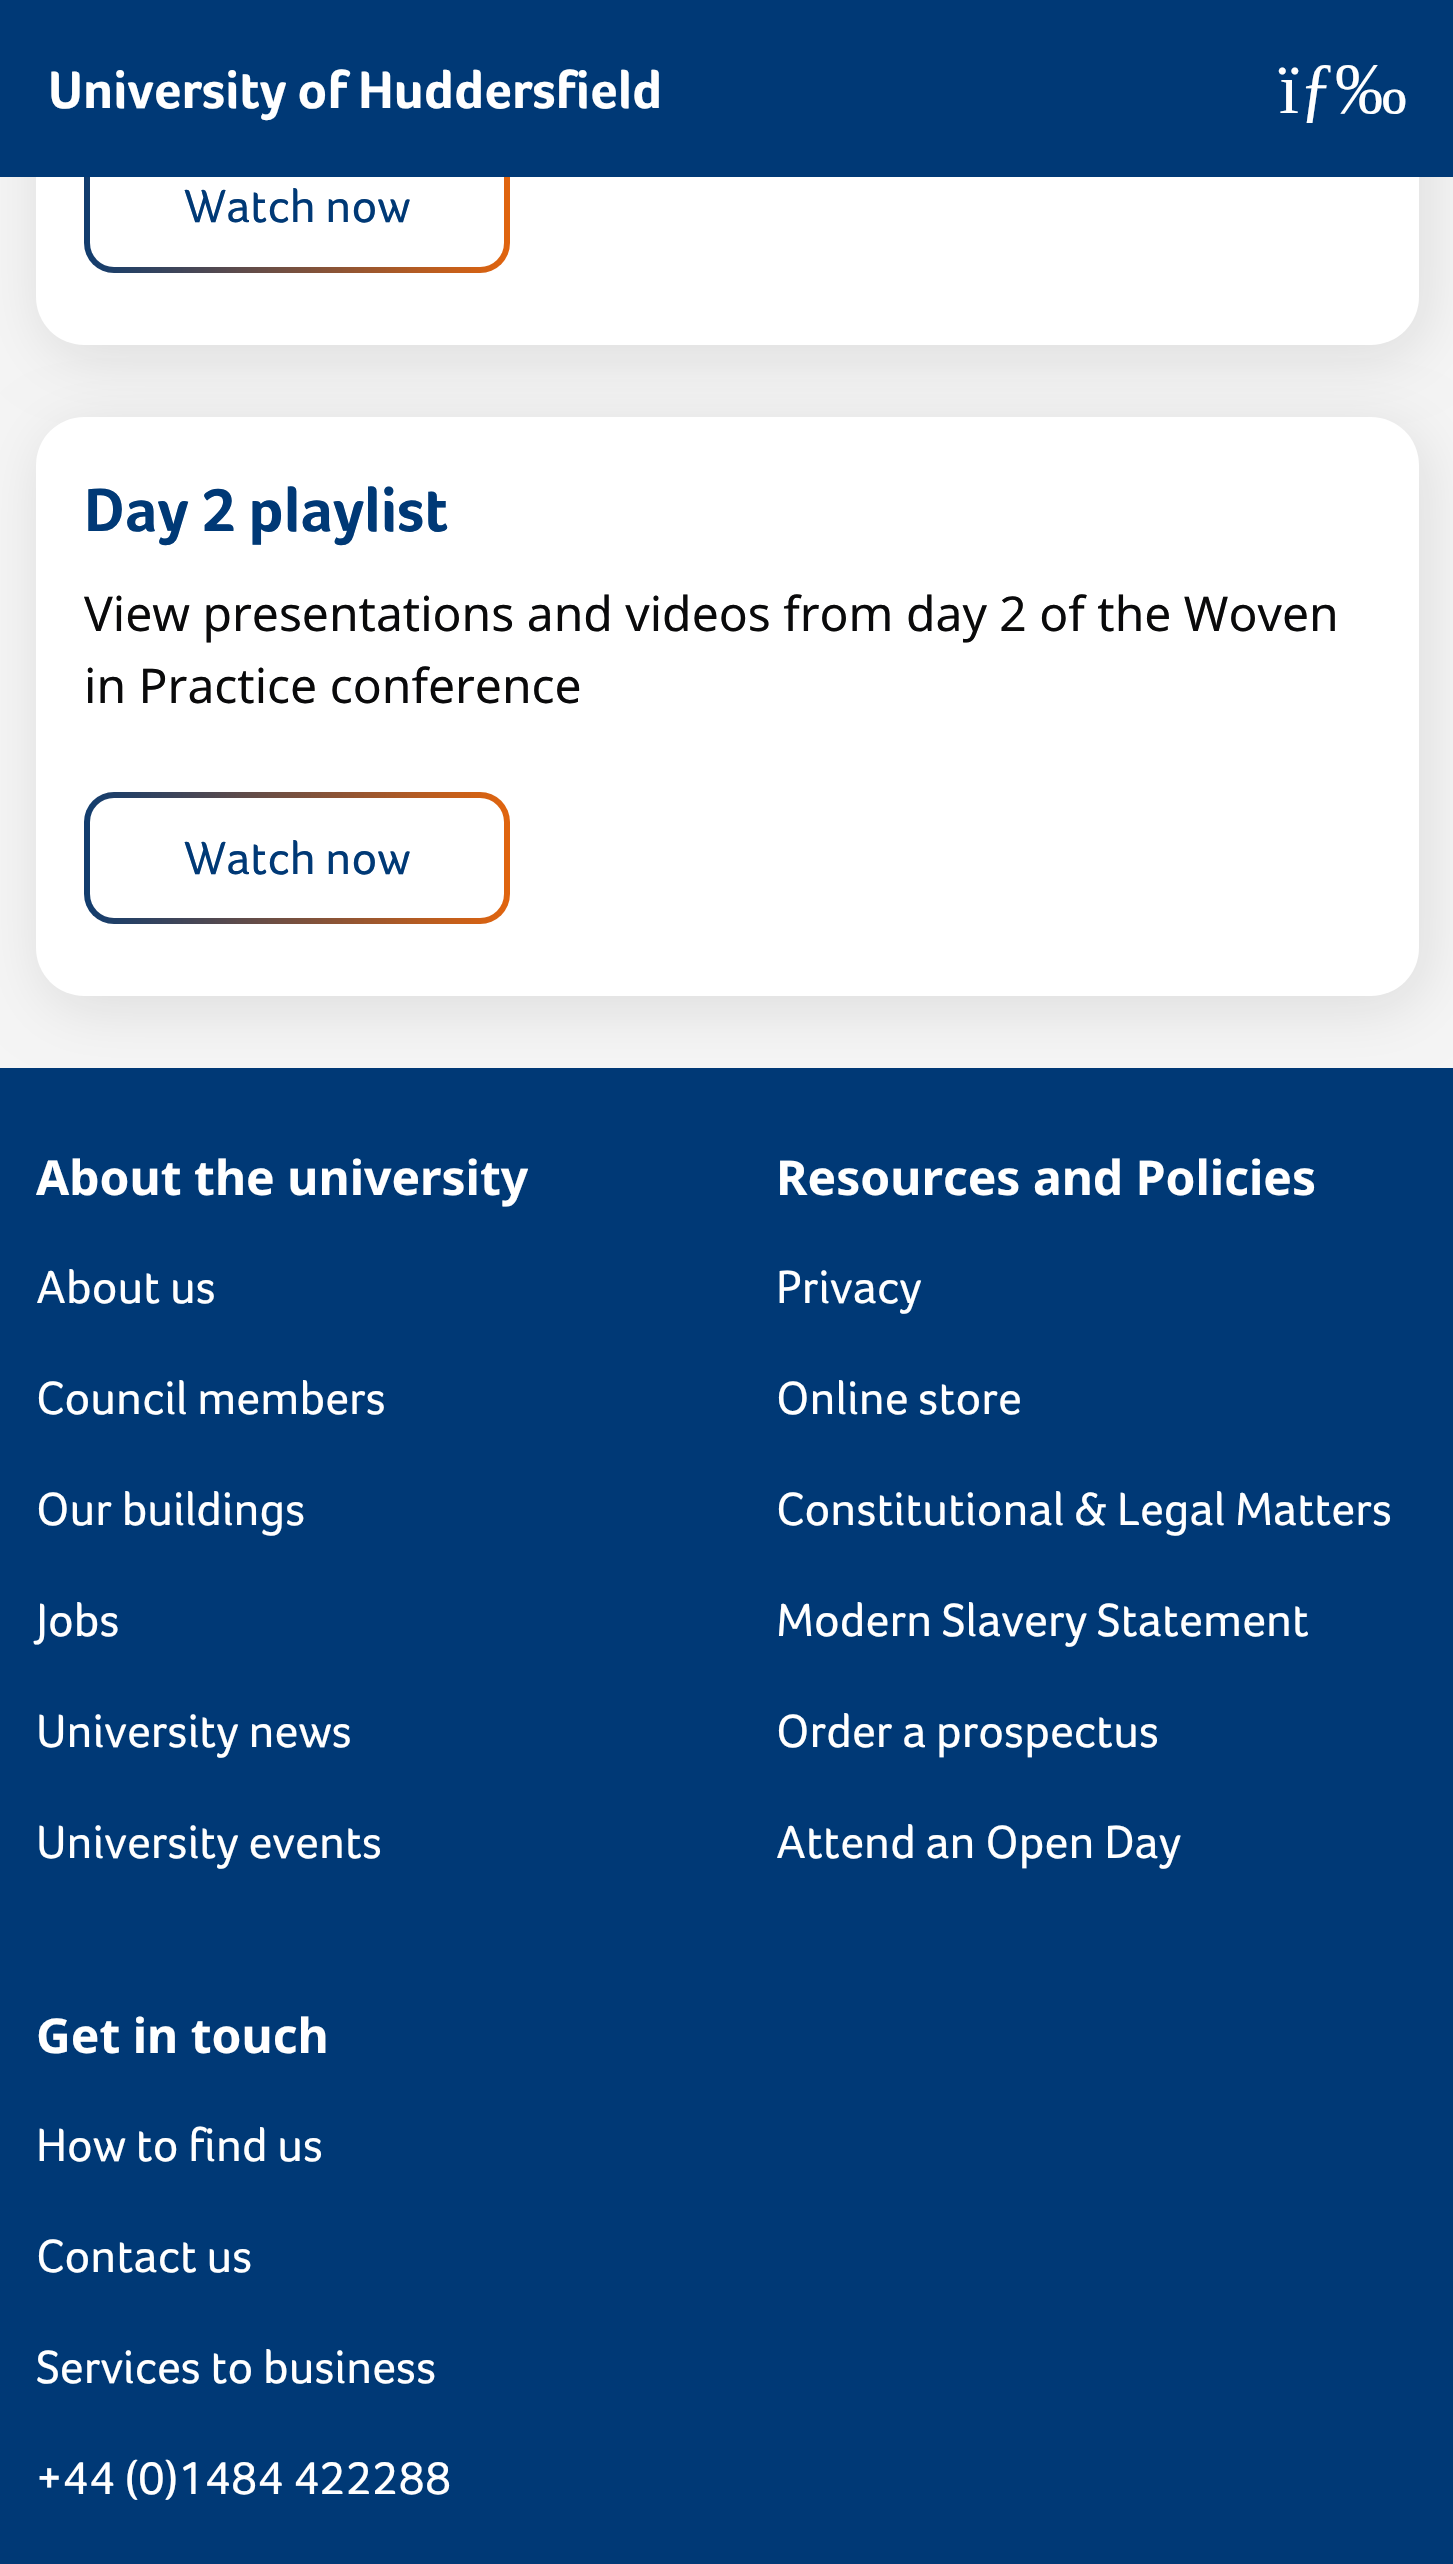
void draw(SkCanvas* canvas) {
    SkPaint paint;
    paint.setAntiAlias(true);
    canvas->clear(0xFFF5F5F5);
    paint.setColor(0x1A000000);
    paint.setMaskFilter(SkMaskFilter::MakeBlur(kNormal_SkBlurStyle, 30));
    canvas->drawRoundRect(SkRect::MakeXYWH(42, -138, 1383, 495), 48, 48, paint);
    paint.setMaskFilter(nullptr);
    paint.setColor(0xFFFFFFFF);
    canvas->drawRoundRect(SkRect::MakeXYWH(36, -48, 1383, 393), 48, 48, paint);
    {
        const SkColor colors[] = {0xFF003976, 0xFFFF6A00};
        const float stops[] = {0, 1};
        const SkPoint ends[] = {{50, 207}, {572, 207}};
        paint.setShader(SkGradientShader::MakeLinear(ends, colors, stops, 2, SkTileMode::kClamp));
        paint.setAlpha(255);
    }
    canvas->drawRoundRect(SkRect::MakeXYWH(84, 141, 426, 132), 30, 30, paint);
    paint.setShader(nullptr);
    paint.setColor(0xFFFFFFFF);
    canvas->drawRoundRect(SkRect::MakeXYWH(90, 147, 414, 120), 24, 24, paint);
    paint.setColor(0xFF003976);
    canvas->drawRect(SkRect::MakeXYWH(0, 0, 1453, 177), paint);
    SkFont font1(fontMgr->matchFamilyStyle("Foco", SkFontStyle::Bold()), 54);
    font1.setSubpixel(true);
    paint.setColor(0xFFFFFFFF);
    canvas->drawString("University of Huddersfield", 48, 108, font1, paint);
    SkFont font2(fontMgr->matchFamilyStyle("Liberation Serif", SkFontStyle::Normal()), 72);
    font2.setSubpixel(true);
    canvas->drawString("ïƒ‰", 1279, 113, font2, paint);
    SkFont font3(fontMgr->matchFamilyStyle("Foco", SkFontStyle::Normal()), 48);
    font3.setSubpixel(true);
    paint.setColor(0xFF003976);
    canvas->drawString("Watch now", 184, 222, font3, paint);
    canvas->drawRect(SkRect::MakeXYWH(0, 1068, 1453, 1496), paint);
    paint.setColor(0x1A000000);
    paint.setMaskFilter(SkMaskFilter::MakeBlur(kNormal_SkBlurStyle, 30));
    canvas->drawRoundRect(SkRect::MakeXYWH(42, 429, 1383, 579), 48, 48, paint);
    paint.setMaskFilter(nullptr);
    paint.setColor(0xFFFFFFFF);
    canvas->drawRoundRect(SkRect::MakeXYWH(36, 417, 1383, 579), 48, 48, paint);
    SkFont font4(fontMgr->matchFamilyStyle("Foco", SkFontStyle::Bold()), 63);
    font4.setSubpixel(true);
    paint.setColor(0xFF003976);
    canvas->drawString("Day 2 playlist", 84, 531, font4, paint);
    SkFont font5(fontMgr->matchFamilyStyle("Noto Sans", SkFontStyle::Normal()), 48);
    font5.setSubpixel(true);
    paint.setColor(0xFF0A0A0B);
    canvas->drawString("View presentations and videos from day 2 of the Woven", 84, 631, font5, paint);
    canvas->drawString("in Practice conference", 84, 703, font5, paint);
    {
        const SkColor colors[] = {0xFF003976, 0xFFFF6A00};
        const float stops[] = {0, 1};
        const SkPoint ends[] = {{50, 858}, {572, 858}};
        paint.setShader(SkGradientShader::MakeLinear(ends, colors, stops, 2, SkTileMode::kClamp));
        paint.setAlpha(255);
    }
    canvas->drawRoundRect(SkRect::MakeXYWH(84, 792, 426, 132), 30, 30, paint);
    paint.setShader(nullptr);
    paint.setColor(0xFFFFFFFF);
    canvas->drawRoundRect(SkRect::MakeXYWH(90, 798, 414, 120), 24, 24, paint);
    paint.setColor(0xFF003976);
    canvas->drawString("Watch now", 184, 874, font3, paint);
    SkFont font6(fontMgr->matchFamilyStyle("Noto Sans", SkFontStyle::Bold()), 48);
    font6.setSubpixel(true);
    paint.setColor(0xFFFFFFFF);
    canvas->drawString("About the university", 36, 1195, font6, paint);
    canvas->drawString("About us", 36, 1303, font3, paint);
    canvas->drawString("Council members", 36, 1414, font3, paint);
    canvas->drawString("Our buildings", 36, 1525, font3, paint);
    canvas->drawString("Jobs", 36, 1636, font3, paint);
    canvas->drawString("University news", 36, 1747, font3, paint);
    canvas->drawString("University events", 36, 1858, font3, paint);
    canvas->drawString("Resources and Policies", 776, 1195, font6, paint);
    canvas->drawString("Privacy", 776, 1303, font3, paint);
    canvas->drawString("Online store", 776, 1414, font3, paint);
    canvas->drawString("Constitutional & Legal Matters", 776, 1525, font3, paint);
    canvas->drawString("Modern Slavery Statement", 776, 1636, font3, paint);
    canvas->drawString("Order a prospectus", 776, 1747, font3, paint);
    canvas->drawString("Attend an Open Day", 776, 1858, font3, paint);
    canvas->drawString("Get in touch", 36, 2053, font6, paint);
    canvas->drawString("How to find us", 36, 2161, font3, paint);
    canvas->drawString("Contact us", 36, 2272, font3, paint);
    canvas->drawString("Services to business", 36, 2383, font3, paint);
    canvas->drawString("+44 (0)1484 422288", 36, 2494, font3, paint);
}
